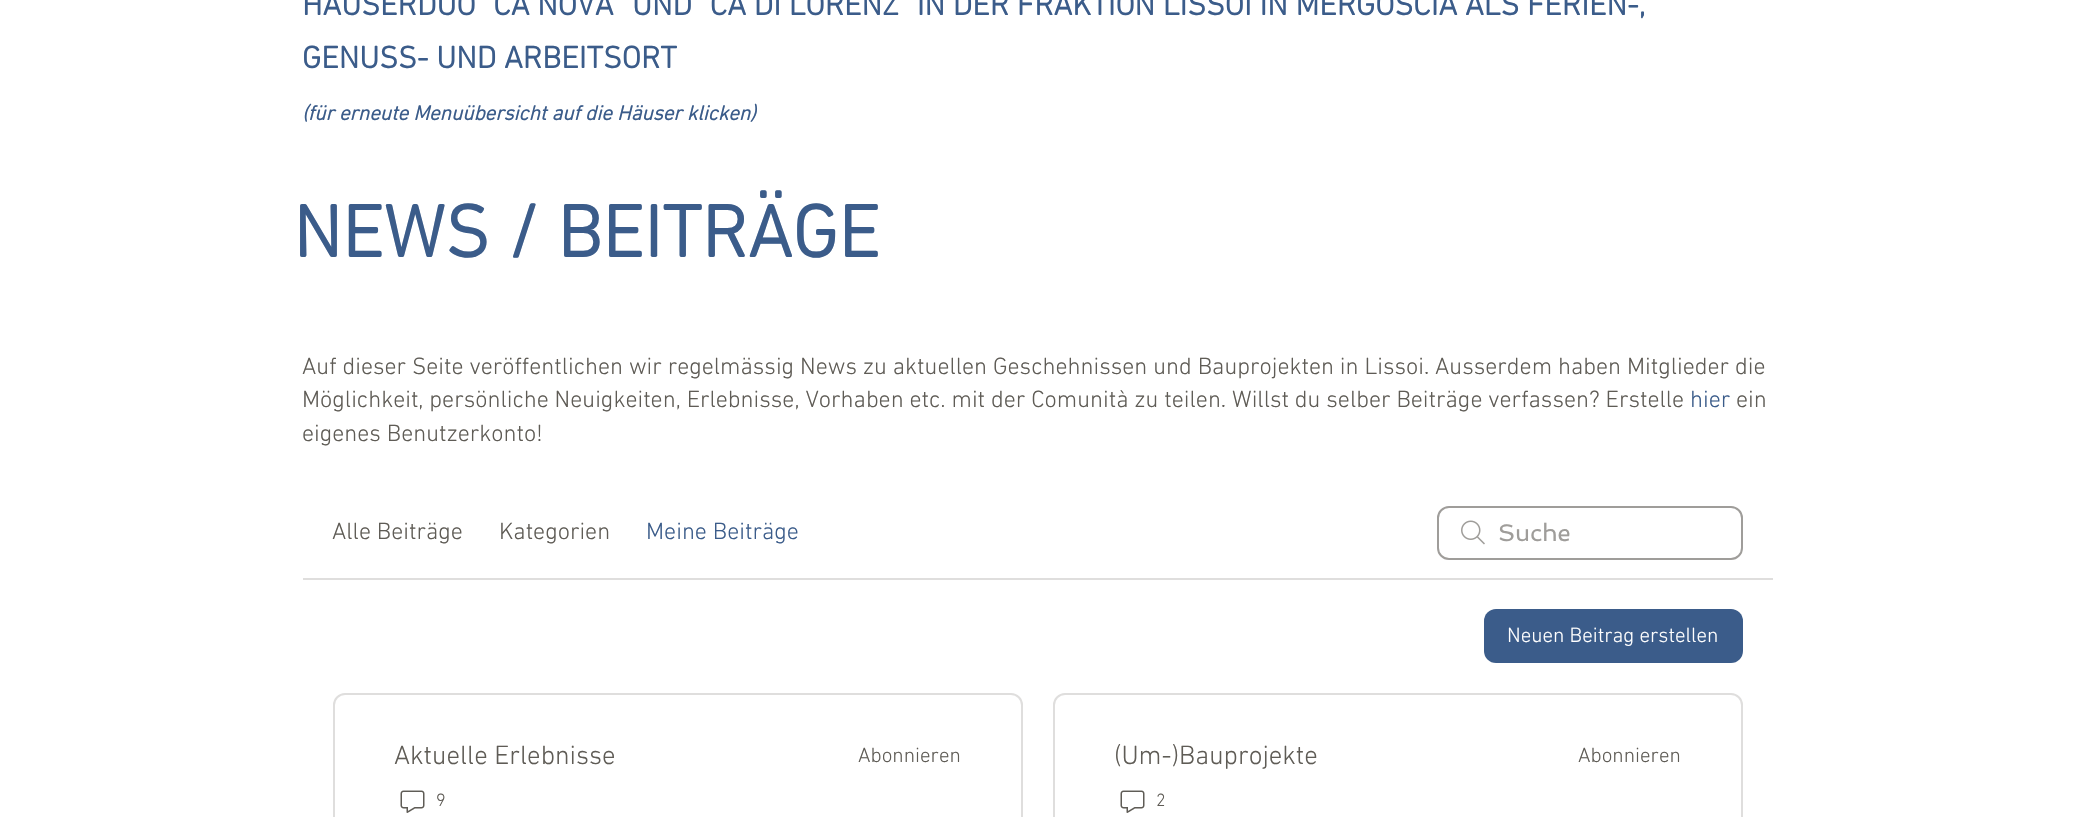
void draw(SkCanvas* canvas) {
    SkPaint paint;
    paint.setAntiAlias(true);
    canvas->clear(0xFFFFFFFF);
    SkFont font1(fontMgr->matchFamilyStyle("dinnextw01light", SkFontStyle::Bold()), 31.5f);
    font1.setSubpixel(true);
    paint.setColor(0xFF3B5C8A);
    canvas->drawString("HÄUSERDUO \"CÀ NOVA“ UND \"CÀ DI LORENZ\" IN DER FRAKTION LISSOI IN MERGOSCIA ALS FERIEN-,", 302, 15, font1, paint);
    canvas->drawString("GENUSS- UND ARBEITSORT", 302, 68, font1, paint);
    SkFont font2(fontMgr->matchFamilyStyle("dinnextw01light", SkFontStyle::BoldItalic()), 21);
    font2.setSubpixel(true);
    canvas->drawString("(für erneute Menuübersicht auf die Häuser klicken)", 302, 120, font2, paint);
    SkFont font3(fontMgr->matchFamilyStyle("dinnextw01light", SkFontStyle::Bold()), 75);
    font3.setSubpixel(true);
    canvas->drawString("NEWS / BEITRÄGE", 293, 257, font3, paint);
    SkFont font4(fontMgr->matchFamilyStyle("dinnextw01light", SkFontStyle(300, SkFontStyle::kNormal_Width, SkFontStyle::kUpright_Slant)), 24);
    font4.setSubpixel(true);
    paint.setColor(0xFF5F5C56);
    canvas->drawString("Auf dieser Seite veröffentlichen wir regelmässig News zu aktuellen Geschehnissen und Bauprojekten in Lissoi. Ausserdem haben Mitglieder die", 302, 374, font4, paint);
    canvas->drawString("Möglichkeit, persönliche Neuigkeiten, Erlebnisse, Vorhaben etc. mit der Comunità zu teilen. Willst du selber Beiträge verfassen? Erstelle", 302, 407, font4, paint);
    paint.setColor(0xFF3B5C8A);
    canvas->drawString("hier", 1690, 407, font4, paint);
    paint.setColor(0xFF5F5C56);
    canvas->drawString("ein", 1736, 407, font4, paint);
    canvas->drawString("eigenes Benutzerkonto!", 302, 441, font4, paint);
    paint.setColor(0xFFDFDEDD);
    canvas->drawRect(SkRect::MakeXYWH(303, 578, 1470, 2), paint);
    paint.setColor(0xFF5F5C56);
    canvas->drawString("Alle Beiträge", 332, 539, font4, paint);
    canvas->drawString("Kategorien", 499, 539, font4, paint);
    paint.setColor(0xFF3B5C8A);
    canvas->drawString("Meine Beiträge", 646, 539, font4, paint);
    canvas->drawImageRect(SkImages::DeferredFromEncodedData(SkData::MakeFromFileName("img1.png")), SkRect::MakeXYWH(1461, 520, 24, 25), SkSamplingOptions());
    paint.setStyle(SkPaint::kStroke_Style);
    paint.setStrokeWidth(2);
    paint.setColor(0xFF9F9D9A);
    canvas->drawRoundRect(SkRect::MakeXYWH(1438, 507, 304, 52), 11, 11, paint);
    SkFont font5(fontMgr->matchFamilyStyle("Spinnaker", SkFontStyle::Normal()), 24);
    font5.setSubpixel(true);
    paint.setStyle(SkPaint::kFill_Style);
    canvas->drawString("Suche", 1498, 541, font5, paint);
    paint.setColor(0xFF3B5C8A);
    canvas->drawRoundRect(SkRect::MakeXYWH(1484, 609, 259, 54), 12, 12, paint);
    SkFont font6(fontMgr->matchFamilyStyle("dinnextw01light", SkFontStyle(300, SkFontStyle::kNormal_Width, SkFontStyle::kUpright_Slant)), 21);
    font6.setSubpixel(true);
    paint.setColor(0xFFFFFFFF);
    canvas->drawString("Neuen Beitrag erstellen", 1507, 642, font6, paint);
    paint.setStyle(SkPaint::kStroke_Style);
    paint.setColor(0xFFDFDEDD);
    canvas->drawRoundRect(SkRect::MakeXYWH(334, 694, 688, 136), 11, 11, paint);
    SkFont font7(fontMgr->matchFamilyStyle("dinnextw01light", SkFontStyle(300, SkFontStyle::kNormal_Width, SkFontStyle::kUpright_Slant)), 27);
    font7.setSubpixel(true);
    paint.setStyle(SkPaint::kFill_Style);
    paint.setColor(0xFF5F5C56);
    canvas->drawString("Aktuelle Erlebnisse", 394, 764, font7, paint);
    canvas->drawString("Abonnieren", 858, 762, font6, paint);
    canvas->drawImageRect(SkImages::DeferredFromEncodedData(SkData::MakeFromFileName("img2.png")), SkRect::MakeXYWH(400, 790, 25, 23), SkSamplingOptions());
    SkFont font8(fontMgr->matchFamilyStyle("dinnextw01light", SkFontStyle(300, SkFontStyle::kNormal_Width, SkFontStyle::kUpright_Slant)), 18);
    font8.setSubpixel(true);
    canvas->drawString("9", 436, 806, font8, paint);
    paint.setStyle(SkPaint::kStroke_Style);
    paint.setColor(0xFFDFDEDD);
    canvas->drawRoundRect(SkRect::MakeXYWH(1054, 694, 688, 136), 11, 11, paint);
    paint.setStyle(SkPaint::kFill_Style);
    paint.setColor(0xFF5F5C56);
    canvas->drawString("(Um-)Bauprojekte", 1114, 764, font7, paint);
    canvas->drawString("Abonnieren", 1578, 762, font6, paint);
    canvas->drawImageRect(SkImages::DeferredFromEncodedData(SkData::MakeFromFileName("img2.png")), SkRect::MakeXYWH(1120, 790, 25, 23), SkSamplingOptions());
    canvas->drawString("2", 1156, 806, font8, paint);
}
